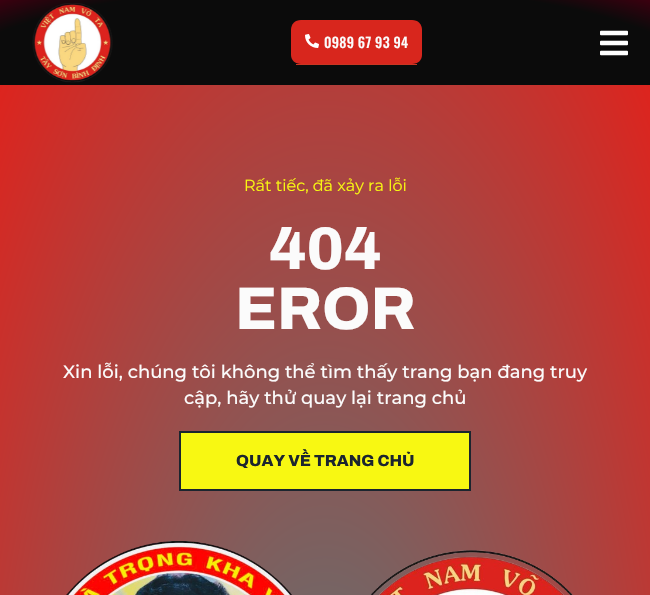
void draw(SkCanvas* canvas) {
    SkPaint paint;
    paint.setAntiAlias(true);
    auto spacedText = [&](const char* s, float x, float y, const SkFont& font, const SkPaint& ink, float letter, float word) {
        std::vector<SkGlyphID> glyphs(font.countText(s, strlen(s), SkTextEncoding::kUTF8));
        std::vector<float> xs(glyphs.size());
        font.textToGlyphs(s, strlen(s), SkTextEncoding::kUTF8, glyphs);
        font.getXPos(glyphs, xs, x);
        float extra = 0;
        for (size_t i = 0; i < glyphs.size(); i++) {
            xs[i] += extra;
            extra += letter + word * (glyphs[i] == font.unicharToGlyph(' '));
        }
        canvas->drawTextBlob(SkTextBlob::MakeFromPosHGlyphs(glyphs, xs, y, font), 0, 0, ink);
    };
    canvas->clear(0xFFFFFFFF);
    {
        const SkColor colors[] = {0xFF0B0B0B, 0xFF3B000F};
        const float stops[] = {0.83f, 1};
        SkMatrix m = SkMatrix::Translate(325, 85).preScale(460, 120);
        paint.setShader(SkGradientShader::MakeRadial({0, 0}, 1, colors, stops, 2, SkTileMode::kClamp, 0, &m));
        paint.setAlpha(255);
    }
    canvas->drawRect(SkRect::MakeXYWH(0, 0, 650, 85), paint);
    canvas->drawImageRect(SkImages::DeferredFromEncodedData(SkData::MakeFromFileName("img1.png")), SkRect::MakeXYWH(32, 3, 81, 80), SkSamplingOptions());
    paint.setShader(nullptr);
    paint.setColor(0xFFD8261D);
    canvas->drawPath(SkPathBuilder().moveTo(301, 20).lineTo(412, 20).cubicTo(418, 20, 422, 24, 422, 30).lineTo(422, 55).cubicTo(422, 60, 418, 64, 412, 64).lineTo(301, 64).cubicTo(295, 64, 291, 60, 291, 55).lineTo(291, 30).cubicTo(291, 24, 295, 20, 301, 20).close().detach(), paint);
    paint.setColor(0xFFCB3522);
    canvas->drawRect(SkRect::MakeXYWH(296, 64, 121, 1), paint);
    canvas->drawImageRect(SkImages::DeferredFromEncodedData(SkData::MakeFromFileName("img2.png")), SkRect::MakeXYWH(305, 34, 14, 14), SkSamplingOptions());
    SkFont font1(fontMgr->matchFamilyStyle("Oswald", SkFontStyle(500, SkFontStyle::kNormal_Width, SkFontStyle::kUpright_Slant)), 14);
    font1.setSubpixel(true);
    paint.setColor(0xFFFBFBFB);
    spacedText("0989 67 93 94", 324, 48, font1, paint, 0.25f, 0);
    canvas->drawImageRect(SkImages::DeferredFromEncodedData(SkData::MakeFromFileName("img3.png")), SkRect::MakeXYWH(600, 30, 28, 26), SkSamplingOptions());
    {
        const SkColor colors[] = {0xFF6B6B6B, 0xFFDD241E};
        const float stops[] = {0.2f, 1};
        SkMatrix m = SkMatrix::Translate(325, 922).preScale(460, 1184);
        paint.setShader(SkGradientShader::MakeRadial({0, 0}, 1, colors, stops, 2, SkTileMode::kClamp, 0, &m));
        paint.setAlpha(255);
    }
    canvas->drawRect(SkRect::MakeXYWH(0, 85, 650, 510), paint);
    SkFont font2(fontMgr->matchFamilyStyle("Montserrat", SkFontStyle::Normal()), 16);
    font2.setSubpixel(true);
    paint.setShader(nullptr);
    paint.setColor(0xFFF8F812);
    canvas->drawString("Rất tiếc, đã xảy ra lỗi", 244, 191, font2, paint);
    SkFont font3(fontMgr->matchFamilyStyle("Archivo", SkFontStyle(800, SkFontStyle::kNormal_Width, SkFontStyle::kUpright_Slant)), 60);
    font3.setSubpixel(true);
    paint.setColor(0xFFFBFBFB);
    canvas->drawString("404", 269, 269, font3, paint);
    canvas->drawString("EROR", 235, 329, font3, paint);
    SkFont font4(fontMgr->matchFamilyStyle("Montserrat", SkFontStyle(500, SkFontStyle::kNormal_Width, SkFontStyle::kUpright_Slant)), 18);
    font4.setSubpixel(true);
    canvas->drawString("Xin lỗi, chúng tôi không thể tìm thấy trang bạn đang truy", 63, 378, font4, paint);
    canvas->drawString("cập, hãy thử quay lại trang chủ", 184, 404, font4, paint);
    paint.setColor(0xFFF8F812);
    canvas->drawRect(SkRect::MakeXYWH(180, 432, 290, 58), paint);
    paint.setStyle(SkPaint::kStroke_Style);
    paint.setStrokeWidth(2);
    paint.setColor(0xFF1B252F);
    canvas->drawRect(SkRect::MakeXYWH(180, 432, 290, 58), paint);
    SkFont font5(fontMgr->matchFamilyStyle("Archivo", SkFontStyle(800, SkFontStyle::kNormal_Width, SkFontStyle::kUpright_Slant)), 16);
    font5.setSubpixel(true);
    paint.setStyle(SkPaint::kFill_Style);
    canvas->drawString("QUAY VỀ TRANG CHỦ", 236, 466, font5, paint);
    canvas->drawImageRect(SkImages::DeferredFromEncodedData(SkData::MakeFromFileName("img4.png")), SkRect::MakeXYWH(66, 541, 226, 54), SkSamplingOptions());
    canvas->drawImageRect(SkImages::DeferredFromEncodedData(SkData::MakeFromFileName("img5.png")), SkRect::MakeXYWH(370, 550, 203, 45), SkSamplingOptions());
}
